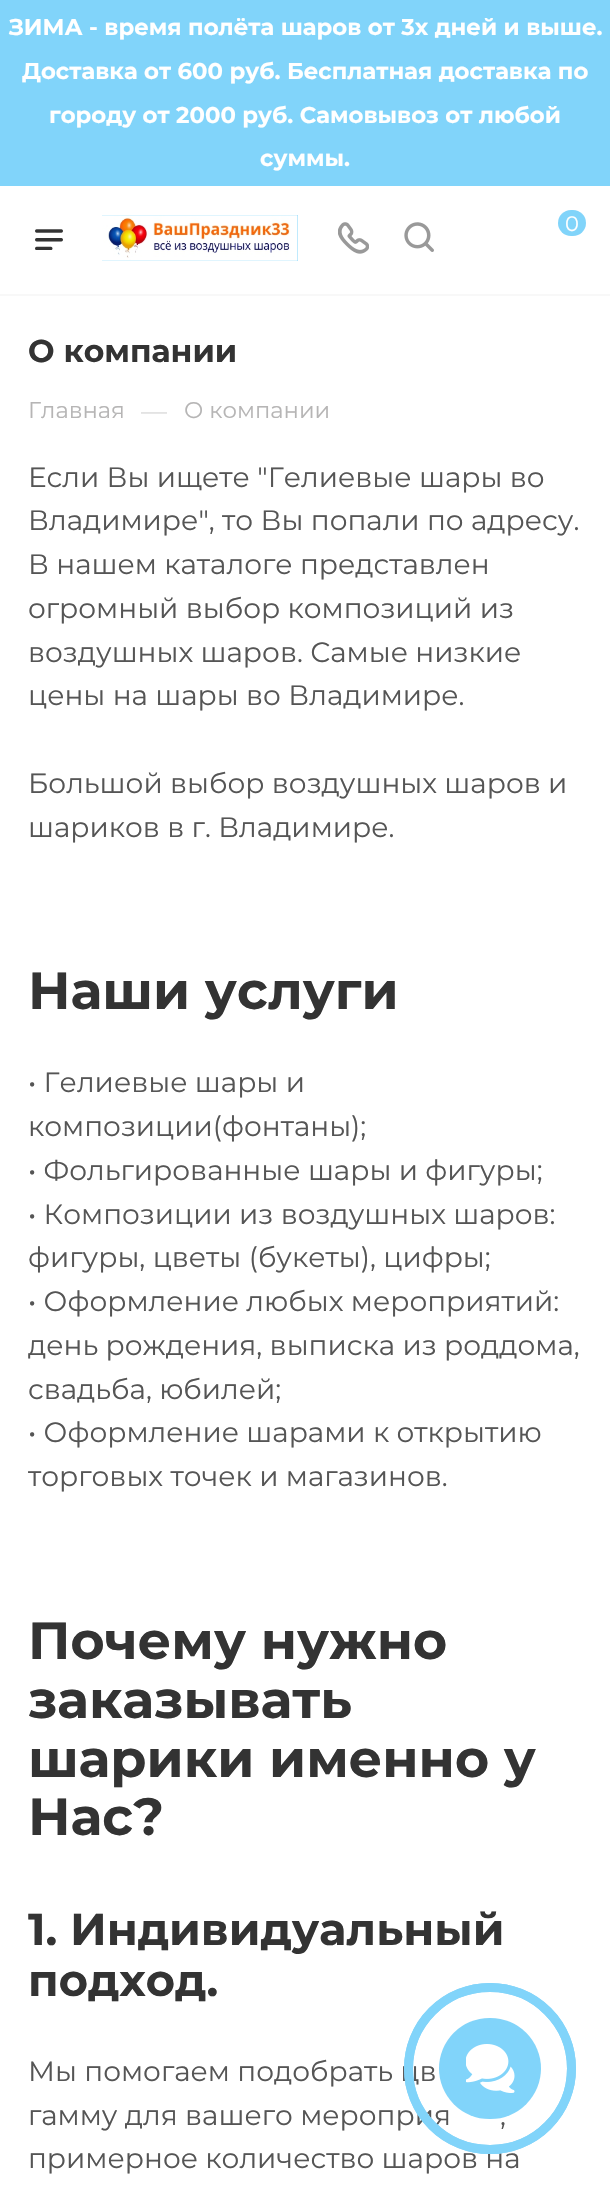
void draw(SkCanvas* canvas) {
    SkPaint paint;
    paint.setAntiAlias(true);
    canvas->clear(0xFFFFFFFF);
    paint.setColor(0xFF81D4FA);
    canvas->drawRect(SkRect::MakeXYWH(0, 0, 610, 186), paint);
    SkFont font1(fontMgr->matchFamilyStyle("Montserrat", SkFontStyle::Bold()), 22.75f);
    font1.setSubpixel(true);
    paint.setColor(0xFFFFFFFF);
    canvas->drawString("ЗИМА - время полёта шаров от 3х дней и выше.", 9, 35, font1, paint);
    canvas->drawString("Доставка от 600 руб. Бесплатная доставка по", 22, 79, font1, paint);
    canvas->drawString("городу от 2000 руб. Cамовывоз от любой", 49, 123, font1, paint);
    canvas->drawString("суммы.", 260, 166, font1, paint);
    paint.setColor(0xFFF8F8F8);
    canvas->drawRect(SkRect::MakeXYWH(0, 294, 610, 2), paint);
    paint.setColor(0xFF81D4FA);
    canvas->drawRect(SkRect::MakeXYWH(102, 215, 196, 46), paint);
    canvas->drawImageRect(SkImages::DeferredFromEncodedData(SkData::MakeFromFileName("img1.png")), SkRect::MakeXYWH(102, 215, 196, 46), SkSamplingOptions());
    canvas->drawImageRect(SkImages::DeferredFromEncodedData(SkData::MakeFromFileName("img2.png")), SkRect::MakeXYWH(338, 222, 31, 32), SkSamplingOptions());
    canvas->drawImageRect(SkImages::DeferredFromEncodedData(SkData::MakeFromFileName("img3.png")), SkRect::MakeXYWH(404, 222, 30, 30), SkSamplingOptions());
    canvas->drawRoundRect(SkRect::MakeXYWH(558, 210, 28, 26), 13, 13, paint);
    SkFont font2(fontMgr->matchFamilyStyle("Montserrat", SkFontStyle::Normal()), 21);
    font2.setSubpixel(true);
    paint.setColor(0xFFFFFFFF);
    canvas->drawString("0", 565, 231, font2, paint);
    canvas->drawImageRect(SkImages::DeferredFromEncodedData(SkData::MakeFromFileName("img4.png")), SkRect::MakeXYWH(35, 229, 28, 21), SkSamplingOptions());
    SkFont font3(fontMgr->matchFamilyStyle("Montserrat", SkFontStyle::Bold()), 31.5f);
    font3.setSubpixel(true);
    paint.setColor(0xFF333333);
    canvas->drawString("О компании", 28, 362, font3, paint);
    SkFont font4(fontMgr->matchFamilyStyle("Montserrat", SkFontStyle::Normal()), 22.75f);
    font4.setSubpixel(true);
    paint.setColor(0xFFB6B5B5);
    canvas->drawString("Главная", 28, 418, font4, paint);
    SkFont font5(fontMgr->matchFamilyStyle("Montserrat", SkFontStyle::Normal()), 26);
    font5.setSubpixel(true);
    paint.setColor(0xFFDDDDDD);
    canvas->drawString("—", 141, 420, font5, paint);
    paint.setColor(0xFFB6B5B5);
    canvas->drawString("О компании", 184, 418, font4, paint);
    SkFont font6(fontMgr->matchFamilyStyle("Montserrat", SkFontStyle::Normal()), 28);
    font6.setSubpixel(true);
    paint.setColor(0xFF555555);
    canvas->drawString("Если Вы ищете \"Гелиевые шары во", 28, 487, font6, paint);
    canvas->drawString("Владимире\", то Вы попали по адресу.", 28, 530, font6, paint);
    canvas->drawString("В нашем каталоге представлен", 28, 574, font6, paint);
    canvas->drawString("огромный выбор композиций из", 28, 618, font6, paint);
    canvas->drawString("воздушных шаров. Самые низкие", 28, 662, font6, paint);
    canvas->drawString("цены на шары во Владимире.", 28, 705, font6, paint);
    canvas->drawString("Большой выбор воздушных шаров и", 28, 793, font6, paint);
    canvas->drawString("шариков в г. Владимире.", 28, 837, font6, paint);
    SkFont font7(fontMgr->matchFamilyStyle("Montserrat", SkFontStyle::Bold()), 52.25f);
    font7.setSubpixel(true);
    paint.setColor(0xFF333333);
    canvas->drawString("Наши услуги", 28, 1009, font7, paint);
    paint.setColor(0xFF555555);
    canvas->drawString("• Гелиевые шары и", 28, 1092, font6, paint);
    canvas->drawString("композиции(фонтаны);", 28, 1136, font6, paint);
    canvas->drawString("• Фольгированные шары и фигуры;", 28, 1180, font6, paint);
    canvas->drawString("• Композиции из воздушных шаров:", 28, 1224, font6, paint);
    canvas->drawString("фигуры, цветы (букеты), цифры;", 28, 1267, font6, paint);
    canvas->drawString("• Оформление любых мероприятий:", 28, 1311, font6, paint);
    canvas->drawString("день рождения, выписка из роддома,", 28, 1355, font6, paint);
    canvas->drawString("свадьба, юбилей;", 28, 1399, font6, paint);
    canvas->drawString("• Оформление шарами к открытию", 28, 1442, font6, paint);
    canvas->drawString("торговых точек и магазинов.", 28, 1486, font6, paint);
    paint.setColor(0xFF333333);
    canvas->drawString("Почему нужно", 28, 1659, font7, paint);
    canvas->drawString("заказывать", 28, 1718, font7, paint);
    canvas->drawString("шарики именно у", 28, 1777, font7, paint);
    canvas->drawString("Нас?", 28, 1835, font7, paint);
    SkFont font8(fontMgr->matchFamilyStyle("Montserrat", SkFontStyle::Bold()), 44.75f);
    font8.setSubpixel(true);
    canvas->drawString("1. Индивидуальный", 28, 1945, font8, paint);
    canvas->drawString("подход.", 28, 1996, font8, paint);
    paint.setColor(0xFF555555);
    canvas->drawString("Мы помогаем подобрать цв", 28, 2081, font6, paint);
    canvas->drawString("гамму для вашего мероприя", 28, 2125, font6, paint);
    canvas->drawString(",", 500, 2125, font6, paint);
    canvas->drawString("примерное количество шаров на", 28, 2168, font6, paint);
    paint.setColor(0xFF81D4FA);
    canvas->drawRoundRect(SkRect::MakeXYWH(439, 2018, 102, 101), 50.5f, 50.5f, paint);
    canvas->drawImageRect(SkImages::DeferredFromEncodedData(SkData::MakeFromFileName("img5.png")), SkRect::MakeXYWH(466, 2044, 49, 49), SkSamplingOptions());
    paint.setStyle(SkPaint::kStroke_Style);
    paint.setStrokeWidth(9);
    canvas->drawRoundRect(SkRect::MakeXYWH(408.5f, 1987.5f, 163, 162), 81, 81, paint);
    canvas->drawRoundRect(SkRect::MakeXYWH(408.5f, 1987.5f, 163, 162), 81, 81, paint);
}
